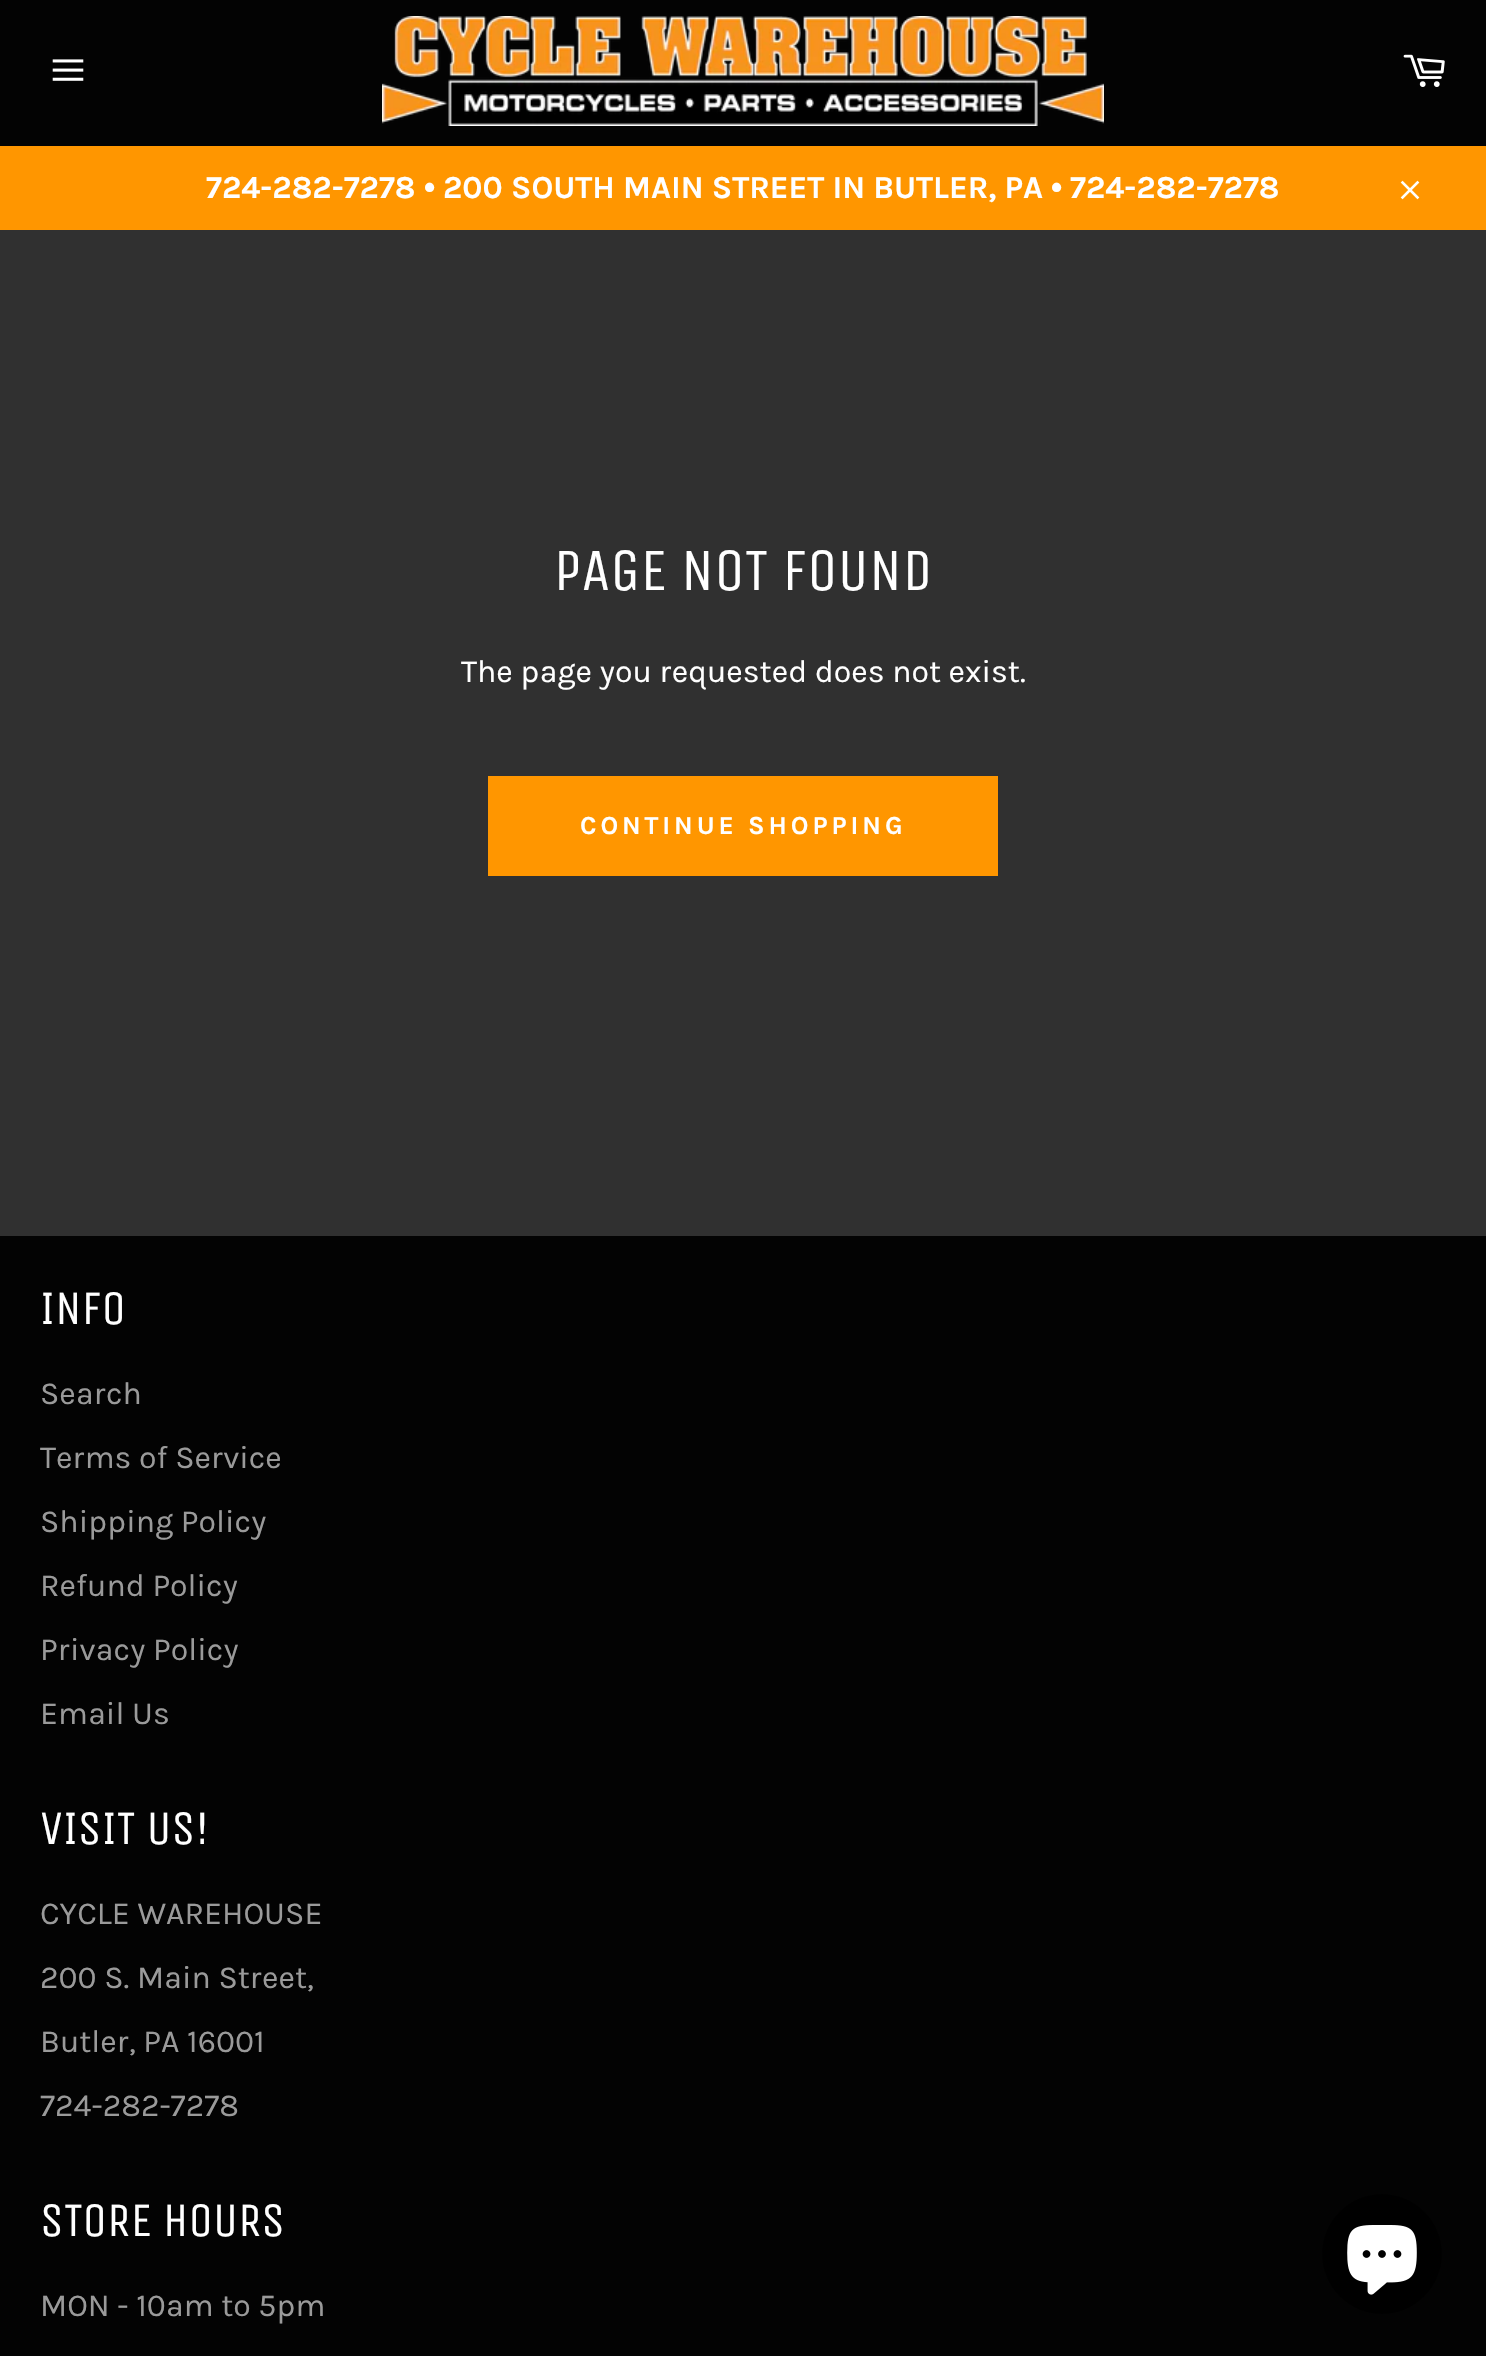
void draw(SkCanvas* canvas) {
    SkPaint paint;
    paint.setAntiAlias(true);
    auto spacedText = [&](const char* s, float x, float y, const SkFont& font, const SkPaint& ink, float letter, float word) {
        std::vector<SkGlyphID> glyphs(font.countText(s, strlen(s), SkTextEncoding::kUTF8));
        std::vector<float> xs(glyphs.size());
        font.textToGlyphs(s, strlen(s), SkTextEncoding::kUTF8, glyphs);
        font.getXPos(glyphs, xs, x);
        float extra = 0;
        for (size_t i = 0; i < glyphs.size(); i++) {
            xs[i] += extra;
            extra += letter + word * (glyphs[i] == font.unicharToGlyph(' '));
        }
        canvas->drawTextBlob(SkTextBlob::MakeFromPosHGlyphs(glyphs, xs, y, font), 0, 0, ink);
    };
    canvas->clear(0xFF303030);
    paint.setColor(0xFF030303);
    canvas->drawRect(SkRect::MakeXYWH(0, 0, 1486, 146), paint);
    canvas->drawImageRect(SkImages::DeferredFromEncodedData(SkData::MakeFromFileName("img1.png")), SkRect::MakeXYWH(52, 59, 32, 22), SkSamplingOptions());
    canvas->drawImageRect(SkImages::DeferredFromEncodedData(SkData::MakeFromFileName("img2.png")), SkRect::MakeXYWH(382, 16, 722, 110), SkSamplingOptions());
    canvas->drawImageRect(SkImages::DeferredFromEncodedData(SkData::MakeFromFileName("img3.png")), SkRect::MakeXYWH(1403, 54, 42, 33), SkSamplingOptions());
    paint.setColor(0xFFFF9600);
    canvas->drawRect(SkRect::MakeXYWH(0, 146, 1486, 84), paint);
    SkFont font1(fontMgr->matchFamilyStyle("Karla", SkFontStyle::Bold()), 32);
    font1.setSubpixel(true);
    paint.setColor(0xFFFFFFFF);
    canvas->drawString("724-282-7278", 206, 198, font1, paint);
    SkFont font2(fontMgr->matchFamilyStyle("Liberation Sans", SkFontStyle::Bold()), 32);
    font2.setSubpixel(true);
    canvas->drawString("•", 424, 198, font2, paint);
    canvas->drawString("200 SOUTH MAIN STREET IN BUTLER, PA", 443, 198, font1, paint);
    canvas->drawString("•", 1051, 198, font2, paint);
    canvas->drawString("724-282-7278", 1070, 198, font1, paint);
    canvas->drawImageRect(SkImages::DeferredFromEncodedData(SkData::MakeFromFileName("img4.png")), SkRect::MakeXYWH(1400, 180, 20, 20), SkSamplingOptions());
    SkFont font3(fontMgr->matchFamilyStyle("Unica One", SkFontStyle::Normal()), 60);
    font3.setSubpixel(true);
    canvas->drawString("PAGE NOT FOUND", 554, 590, font3, paint);
    SkFont font4(fontMgr->matchFamilyStyle("Karla", SkFontStyle::Normal()), 32);
    font4.setSubpixel(true);
    canvas->drawString("The page you requested does not exist.", 461, 682, font4, paint);
    paint.setColor(0xFFFF9600);
    canvas->drawRect(SkRect::MakeXYWH(488, 776, 510, 100), paint);
    SkFont font5(fontMgr->matchFamilyStyle("Karla", SkFontStyle::Bold()), 26);
    font5.setSubpixel(true);
    paint.setColor(0xFFFFFFFF);
    spacedText("CONTINUE SHOPPING", 580, 834, font5, paint, 3.9f, 0);
    paint.setColor(0xFF030303);
    canvas->drawRect(SkRect::MakeXYWH(0, 1236, 1486, 1120), paint);
    SkFont font6(fontMgr->matchFamilyStyle("Unica One", SkFontStyle::Normal()), 48);
    font6.setSubpixel(true);
    paint.setColor(0xFFFFFFFF);
    canvas->drawString("INFO", 40, 1324, font6, paint);
    paint.setColor(0xFF9A9A9A);
    canvas->drawString("Search", 40, 1404, font4, paint);
    canvas->drawString("Terms of Service", 40, 1468, font4, paint);
    canvas->drawString("Shipping Policy", 40, 1532, font4, paint);
    canvas->drawString("Refund Policy", 40, 1596, font4, paint);
    canvas->drawString("Privacy Policy", 40, 1660, font4, paint);
    canvas->drawString("Email Us", 40, 1724, font4, paint);
    paint.setColor(0xFFFFFFFF);
    canvas->drawString("VISIT US!", 40, 1844, font6, paint);
    paint.setColor(0xFF9A9A9A);
    canvas->drawString("CYCLE WAREHOUSE", 40, 1924, font4, paint);
    canvas->drawString("200 S. Main Street,", 40, 1988, font4, paint);
    canvas->drawString("Butler, PA 16001", 40, 2052, font4, paint);
    canvas->drawString("724-282-7278", 40, 2116, font4, paint);
    paint.setColor(0xFFFFFFFF);
    canvas->drawString("STORE HOURS", 40, 2236, font6, paint);
    paint.setColor(0xFF9A9A9A);
    canvas->drawString("MON - 10am to 5pm", 40, 2316, font4, paint);
    paint.setColor(0xFF000000);
    canvas->drawCircle(1382, 2254, 60, paint);
    canvas->drawImageRect(SkImages::DeferredFromEncodedData(SkData::MakeFromFileName("img5.png")), SkRect::MakeXYWH(1347, 2225, 70, 70), SkSamplingOptions());
}
